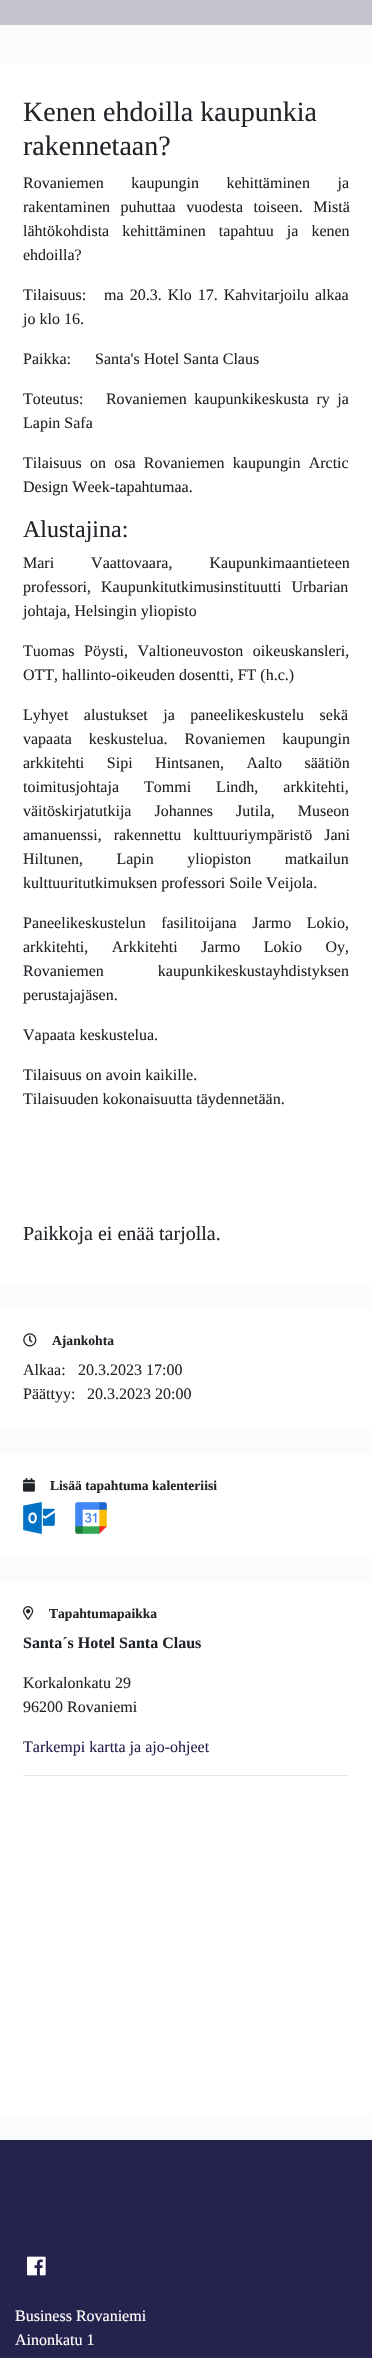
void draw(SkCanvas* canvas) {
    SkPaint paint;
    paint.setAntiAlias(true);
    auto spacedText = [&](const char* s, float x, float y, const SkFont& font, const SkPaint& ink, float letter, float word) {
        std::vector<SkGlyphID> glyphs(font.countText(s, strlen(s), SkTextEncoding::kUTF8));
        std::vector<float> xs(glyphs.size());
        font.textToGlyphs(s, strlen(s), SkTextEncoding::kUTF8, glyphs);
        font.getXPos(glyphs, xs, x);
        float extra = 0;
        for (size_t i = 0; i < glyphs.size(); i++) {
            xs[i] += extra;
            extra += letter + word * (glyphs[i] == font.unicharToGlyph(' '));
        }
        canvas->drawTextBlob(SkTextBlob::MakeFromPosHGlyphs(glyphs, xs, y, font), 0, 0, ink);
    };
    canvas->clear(0xFFFAFBFB);
    paint.setColor(0xFFC4C3CF);
    canvas->drawRect(SkRect::MakeXYWH(0, 0, 372, 25), paint);
    paint.setColor(0xFFFFFFFF);
    canvas->drawRect(SkRect::MakeXYWH(0, 63, 372, 1222), paint);
    SkFont font1(fontMgr->matchFamilyStyle("Liberation Serif", SkFontStyle::Normal()), 28);
    font1.setSubpixel(true);
    paint.setColor(0xFF212529);
    canvas->drawString("Kenen ehdoilla kaupunkia", 23, 121, font1, paint);
    canvas->drawString("rakennetaan?", 23, 155, font1, paint);
    SkFont font2(fontMgr->matchFamilyStyle("Liberation Serif", SkFontStyle::Normal()), 16);
    font2.setSubpixel(true);
    spacedText("Rovaniemen kaupungin kehittäminen ja", 23, 188, font2, paint, 0, 23.5f);
    spacedText("rakentaminen puhuttaa vuodesta toiseen. Mistä", 23, 212, font2, paint, 0, 6.5f);
    spacedText("lähtökohdista kehittäminen tapahtuu ja kenen", 23, 236, font2, paint, 0, 9);
    canvas->drawString("ehdoilla?", 23, 260, font2, paint);
    spacedText("Tilaisuus:   ma 20.3. Klo 17. Kahvitarjoilu alkaa", 23, 300, font2, paint, 0, 2);
    canvas->drawString("jo klo 16.", 23, 324, font2, paint);
    canvas->drawString("Paikka:      Santa's Hotel Santa Claus", 23, 364, font2, paint);
    spacedText("Toteutus:   Rovaniemen kaupunkikeskusta ry ja", 23, 404, font2, paint, 0, 3.5f);
    canvas->drawString("Lapin Safa", 23, 428, font2, paint);
    spacedText("Tilaisuus on osa Rovaniemen kaupungin Arctic", 23, 468, font2, paint, 0, 4.25f);
    canvas->drawString("Design Week-tapahtumaa.", 23, 492, font2, paint);
    SkFont font3(fontMgr->matchFamilyStyle("Liberation Serif", SkFontStyle::Normal()), 24);
    font3.setSubpixel(true);
    canvas->drawString("Alustajina:", 23, 537, font3, paint);
    spacedText("Mari Vaattovaara, Kaupunkimaantieteen", 23, 568, font2, paint, 0, 33);
    spacedText("professori, Kaupunkitutkimusinstituutti Urbarian", 23, 592, font2, paint, 0, 6);
    canvas->drawString("johtaja, Helsingin yliopisto", 23, 616, font2, paint);
    spacedText("Tuomas Pöysti, Valtioneuvoston oikeuskansleri,", 23, 656, font2, paint, 0, 5.5f);
    canvas->drawString("OTT, hallinto-oikeuden dosentti, FT (h.c.)", 23, 680, font2, paint);
    spacedText("Lyhyet alustukset ja paneelikeskustelu sekä", 23, 720, font2, paint, 0, 11.5f);
    spacedText("vapaata keskustelua. Rovaniemen kaupungin", 23, 744, font2, paint, 0, 13);
    spacedText("arkkitehti Sipi Hintsanen, Aalto säätiön", 23, 768, font2, paint, 0, 18.5f);
    spacedText("toimitusjohtaja Tommi Lindh, arkkitehti,", 23, 792, font2, paint, 0, 21);
    spacedText("väitöskirjatutkija Johannes Jutila, Museon", 23, 816, font2, paint, 0, 19);
    spacedText("amanuenssi, rakennettu kulttuuriympäristö Jani", 23, 840, font2, paint, 0, 8);
    spacedText("Hiltunen, Lapin yliopiston matkailun", 23, 864, font2, paint, 0, 29.5f);
    canvas->drawString("kulttuuritutkimuksen professori Soile Veijola.", 23, 888, font2, paint);
    spacedText("Paneelikeskustelun fasilitoijana Jarmo Lokio,", 23, 928, font2, paint, 0, 11.5f);
    spacedText("arkkitehti, Arkkitehti Jarmo Lokio Oy,", 23, 952, font2, paint, 0, 19.5f);
    spacedText("Rovaniemen kaupunkikeskustayhdistyksen", 23, 976, font2, paint, 0, 50);
    canvas->drawString("perustajajäsen.", 23, 1000, font2, paint);
    canvas->drawString("Vapaata keskustelua.", 23, 1040, font2, paint);
    canvas->drawString("Tilaisuus on avoin kaikille.", 23, 1080, font2, paint);
    canvas->drawString("Tilaisuuden kokonaisuutta täydennetään.", 23, 1104, font2, paint);
    SkFont font4(fontMgr->matchFamilyStyle("Liberation Serif", SkFontStyle::Normal()), 20);
    font4.setSubpixel(true);
    canvas->drawString("Paikkoja ei enää tarjolla.", 23, 1240, font4, paint);
    paint.setColor(0xFFFFFFFF);
    canvas->drawRect(SkRect::MakeXYWH(0, 1309, 372, 121), paint);
    canvas->drawImageRect(SkImages::DeferredFromEncodedData(SkData::MakeFromFileName("img1.png")), SkRect::MakeXYWH(23, 1333, 14, 14), SkSamplingOptions());
    SkFont font5(fontMgr->matchFamilyStyle("Liberation Serif", SkFontStyle::Bold()), 13.6f);
    font5.setSubpixel(true);
    paint.setColor(0xFF212529);
    canvas->drawString("Ajankohta", 52, 1345, font5, paint);
    canvas->drawString("Alkaa:", 23, 1375, font2, paint);
    canvas->drawString("20.3.2023 17:00", 78, 1375, font2, paint);
    canvas->drawString("Päättyy:", 23, 1399, font2, paint);
    canvas->drawString("20.3.2023 20:00", 87, 1399, font2, paint);
    paint.setColor(0xFFFFFFFF);
    canvas->drawRect(SkRect::MakeXYWH(0, 1454, 372, 104), paint);
    canvas->drawImageRect(SkImages::DeferredFromEncodedData(SkData::MakeFromFileName("img2.png")), SkRect::MakeXYWH(23, 1478, 12, 14), SkSamplingOptions());
    paint.setColor(0xFF212529);
    canvas->drawString("Lisää tapahtuma kalenteriisi", 50, 1490, font5, paint);
    canvas->drawImageRect(SkImages::DeferredFromEncodedData(SkData::MakeFromFileName("img3.png")), SkRect::MakeXYWH(23, 1502, 32, 32), SkSamplingOptions());
    canvas->drawImageRect(SkImages::DeferredFromEncodedData(SkData::MakeFromFileName("img4.png")), SkRect::MakeXYWH(75, 1502, 32, 32), SkSamplingOptions());
    paint.setColor(0xFFFFFFFF);
    canvas->drawRect(SkRect::MakeXYWH(0, 1582, 372, 534), paint);
    canvas->drawImageRect(SkImages::DeferredFromEncodedData(SkData::MakeFromFileName("img5.png")), SkRect::MakeXYWH(23, 1606, 11, 14), SkSamplingOptions());
    paint.setColor(0xFF212529);
    canvas->drawString("Tapahtumapaikka", 49, 1618, font5, paint);
    SkFont font6(fontMgr->matchFamilyStyle("Liberation Serif", SkFontStyle::Bold()), 16);
    font6.setSubpixel(true);
    canvas->drawString("Santa´s Hotel Santa Claus", 23, 1648, font6, paint);
    canvas->drawString("Korkalonkatu 29", 23, 1688, font2, paint);
    canvas->drawString("96200 Rovaniemi", 23, 1712, font2, paint);
    paint.setColor(0xFF26224E);
    canvas->drawString("Tarkempi kartta ja ajo-ohjeet", 23, 1752, font2, paint);
    paint.setColor(0xFFE6E6E6);
    canvas->drawRect(SkRect::MakeXYWH(23, 1775, 326, 1), paint);
    paint.setColor(0xFF26224E);
    canvas->drawRect(SkRect::MakeXYWH(0, 2140, 372, 218), paint);
    canvas->drawImageRect(SkImages::DeferredFromEncodedData(SkData::MakeFromFileName("img6.png")), SkRect::MakeXYWH(27, 2256, 19, 20), SkSamplingOptions());
    paint.setColor(0xFFFFFFFF);
    canvas->drawString("Business Rovaniemi", 15, 2321, font2, paint);
    canvas->drawString("Ainonkatu 1", 15, 2345, font2, paint);
}
